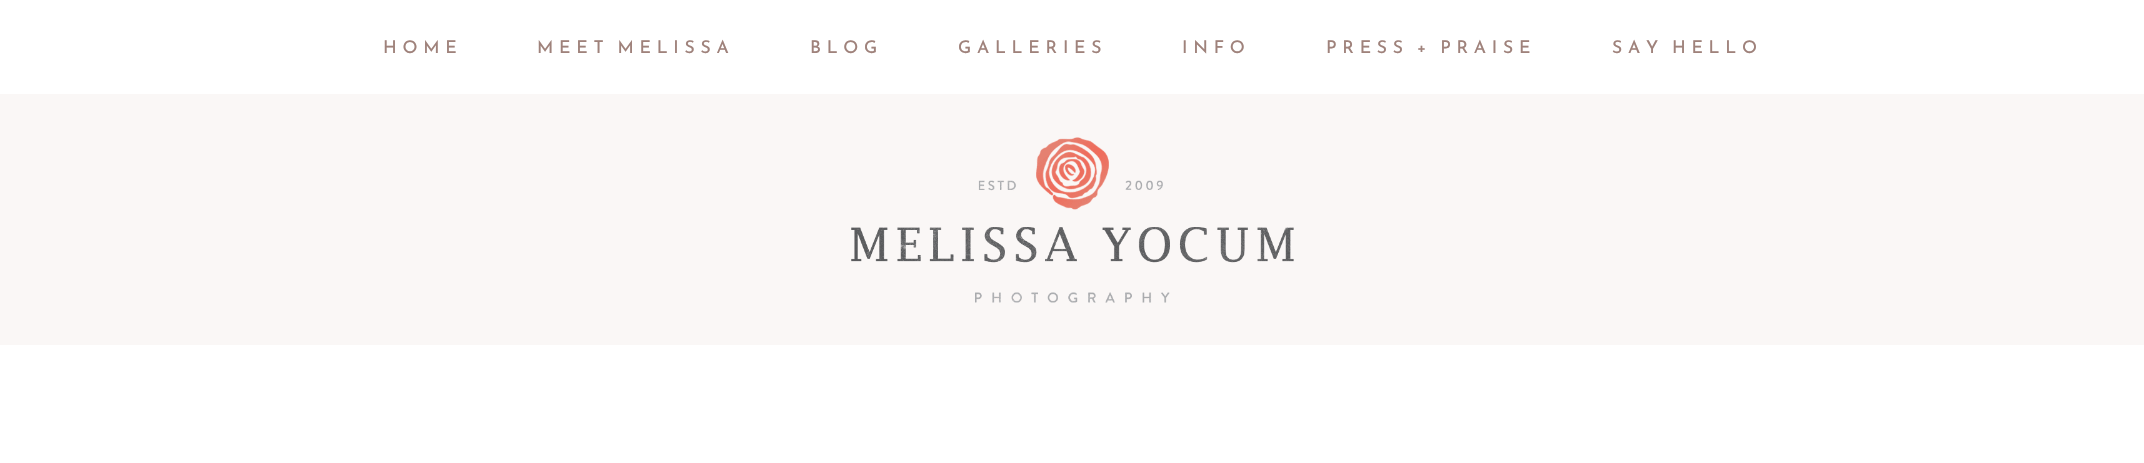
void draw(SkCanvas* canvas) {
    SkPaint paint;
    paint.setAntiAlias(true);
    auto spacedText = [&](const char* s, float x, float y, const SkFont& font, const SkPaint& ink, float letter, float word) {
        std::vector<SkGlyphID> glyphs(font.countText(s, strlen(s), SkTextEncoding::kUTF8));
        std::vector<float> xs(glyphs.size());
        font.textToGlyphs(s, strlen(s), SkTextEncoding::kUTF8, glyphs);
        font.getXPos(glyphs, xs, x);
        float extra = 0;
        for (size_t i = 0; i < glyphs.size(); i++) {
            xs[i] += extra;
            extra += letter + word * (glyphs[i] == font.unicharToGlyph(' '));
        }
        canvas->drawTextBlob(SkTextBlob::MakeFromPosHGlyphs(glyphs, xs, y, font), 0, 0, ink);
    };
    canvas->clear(0xFFFFFFFF);
    SkFont font1(fontMgr->matchFamilyStyle("Reem Kufi", SkFontStyle::Normal()), 17.5f);
    font1.setSubpixel(true);
    paint.setColor(0xFF9F827B);
    spacedText("HOME", 383, 53, font1, paint, 5.75f, 0);
    spacedText("MEET MELISSA", 537, 53, font1, paint, 5.75f, 0);
    spacedText("BLOG", 810, 53, font1, paint, 5.75f, 0);
    spacedText("GALLERIES", 958, 53, font1, paint, 5.75f, 0);
    spacedText("INFO", 1182, 53, font1, paint, 5.75f, 0);
    spacedText("PRESS + PRAISE", 1326, 53, font1, paint, 5.75f, 0);
    spacedText("SAY HELLO", 1612, 53, font1, paint, 5.75f, 0);
    paint.setColor(0xFFFAF7F6);
    canvas->drawRect(SkRect::MakeXYWH(0, 94, 2144, 251), paint);
    canvas->drawImageRect(SkImages::DeferredFromEncodedData(SkData::MakeFromFileName("img1.png")), SkRect::MakeXYWH(851, 137, 443, 166), SkSamplingOptions());
}
